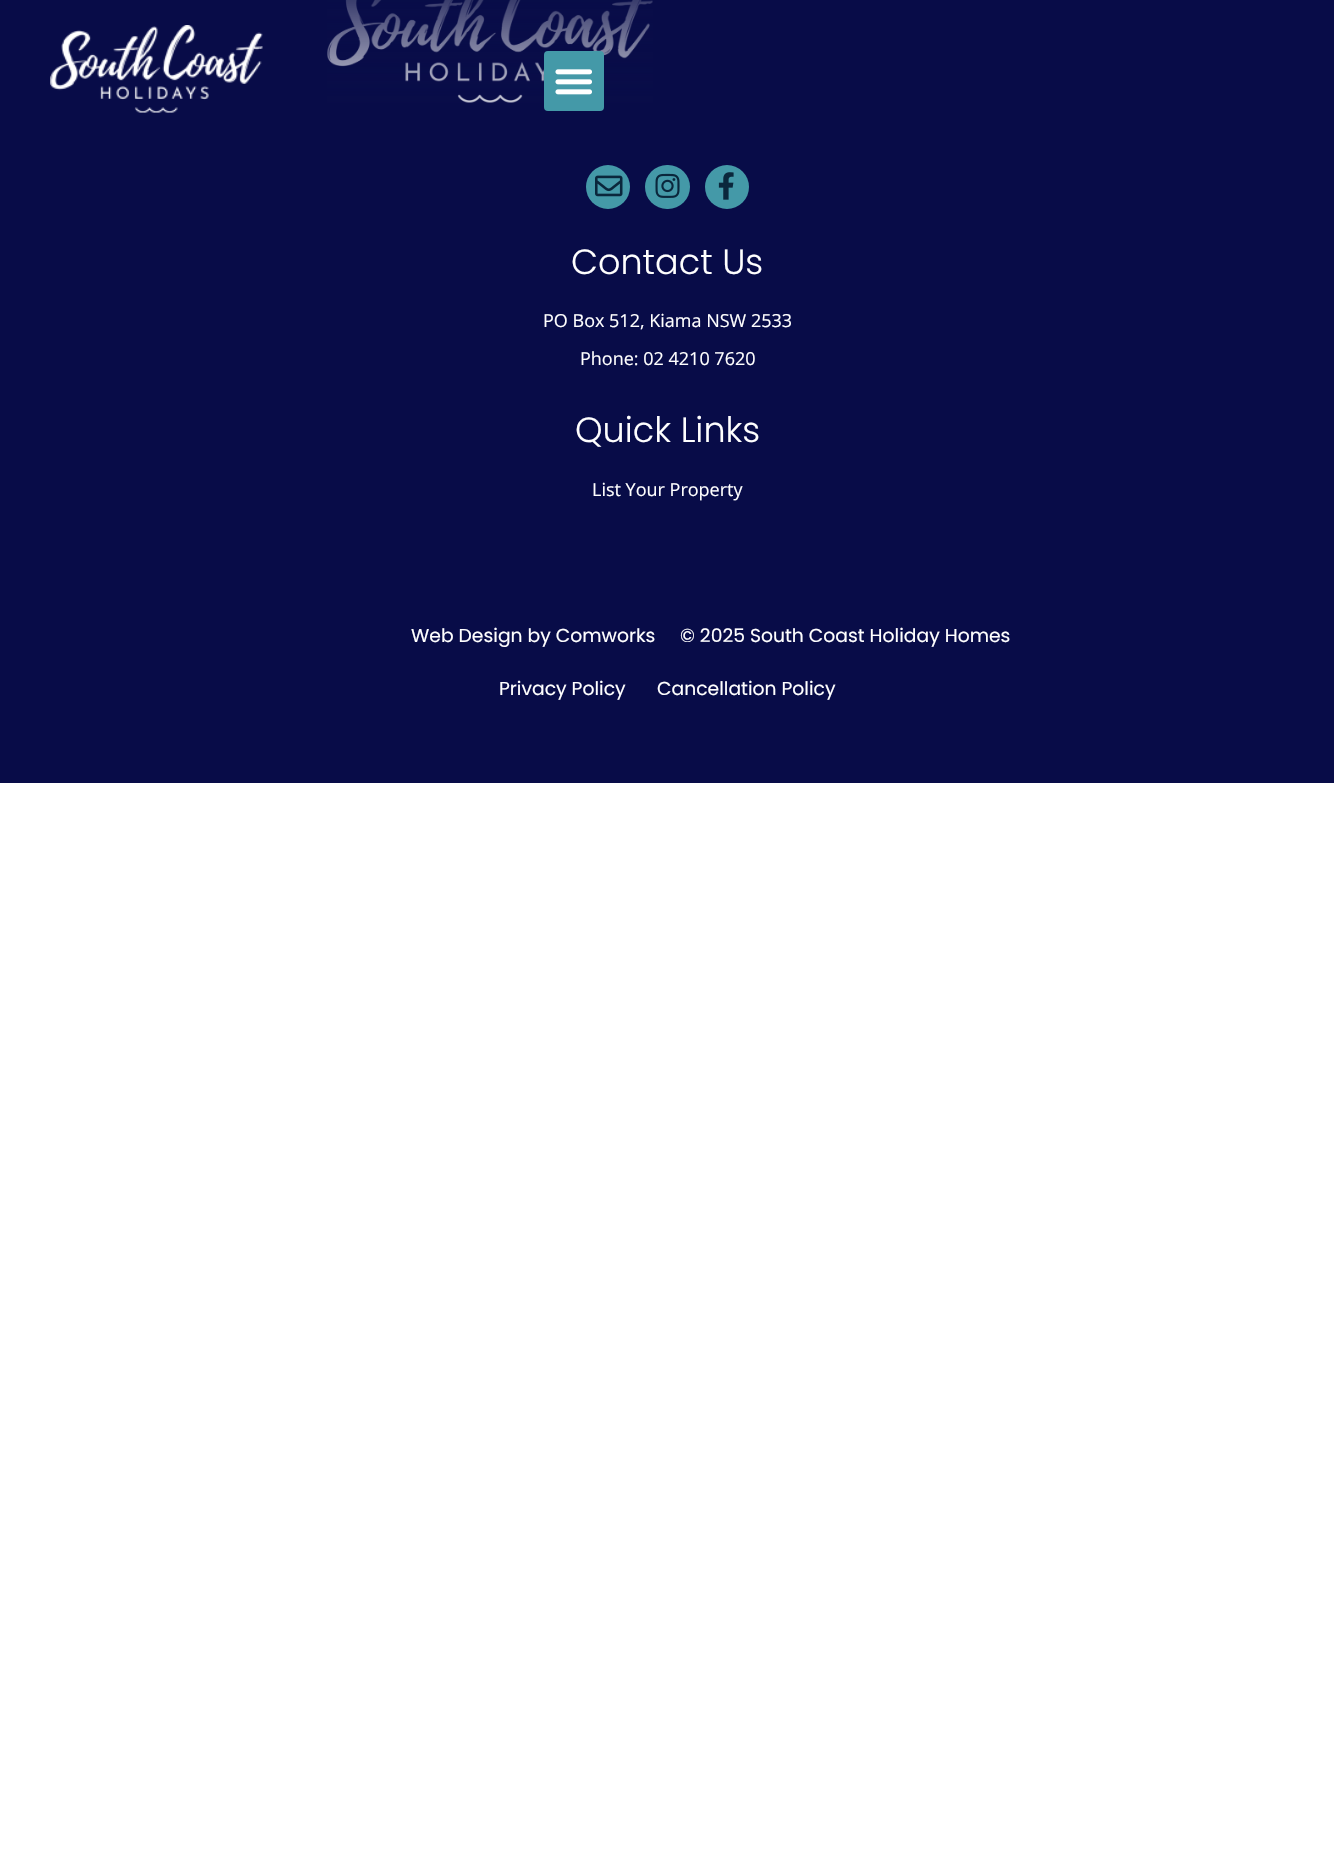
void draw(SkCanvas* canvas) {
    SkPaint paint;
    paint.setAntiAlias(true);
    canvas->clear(0xFFFFFFFF);
    paint.setColor(0xFF080C48);
    canvas->drawRect(SkRect::MakeXYWH(0, 0, 1334, 783), paint);
    canvas->drawImageRect(SkImages::DeferredFromEncodedData(SkData::MakeFromFileName("img3.png")), SkRect::MakeXYWH(327, 0, 326, 103), SkSamplingOptions());
    {
        const SkColor colors[] = {0xCC080C48, 0x00080C48};
        const float stops[] = {0, 1};
        const SkPoint ends[] = {{668, 0}, {668, 138}};
        paint.setShader(SkGradientShader::MakeLinear(ends, colors, stops, 2, SkTileMode::kClamp));
        paint.setAlpha(255);
    }
    canvas->drawRect(SkRect::MakeXYWH(327, 0, 326, 103), paint);
    canvas->drawImageRect(SkImages::DeferredFromEncodedData(SkData::MakeFromFileName("img1.png")), SkRect::MakeXYWH(50, 25, 213, 88), SkSamplingOptions());
    paint.setShader(nullptr);
    paint.setColor(0xFF4499A8);
    canvas->drawRoundRect(SkRect::MakeXYWH(544, 51, 60, 60), 4, 4, paint);
    canvas->drawImageRect(SkImages::DeferredFromEncodedData(SkData::MakeFromFileName("img2.png")), SkRect::MakeXYWH(555, 69, 37, 26), SkSamplingOptions());
    canvas->drawCircle(608, 187, 22, paint);
    canvas->drawImageRect(SkImages::DeferredFromEncodedData(SkData::MakeFromFileName("img4.png")), SkRect::MakeXYWH(595, 175, 28, 22), SkSamplingOptions());
    canvas->drawRoundRect(SkRect::MakeXYWH(645, 165, 45, 44), 22, 22, paint);
    canvas->drawImageRect(SkImages::DeferredFromEncodedData(SkData::MakeFromFileName("img5.png")), SkRect::MakeXYWH(655, 173, 25, 25), SkSamplingOptions());
    canvas->drawCircle(727, 187, 22, paint);
    canvas->drawImageRect(SkImages::DeferredFromEncodedData(SkData::MakeFromFileName("img6.png")), SkRect::MakeXYWH(718, 172, 16, 28), SkSamplingOptions());
    SkFont font1(fontMgr->matchFamilyStyle("Poppins", SkFontStyle(300, SkFontStyle::kNormal_Width, SkFontStyle::kUpright_Slant)), 35);
    font1.setSubpixel(true);
    paint.setColor(0xFFFFFFFF);
    canvas->drawString("Contact Us", 571, 274, font1, paint);
    SkFont font2(fontMgr->matchFamilyStyle("Open Sans", SkFontStyle::Normal()), 18);
    font2.setSubpixel(true);
    canvas->drawString("PO Box 512, Kiama NSW 2533", 543, 327, font2, paint);
    canvas->drawString("Phone: 02 4210 7620", 580, 365, font2, paint);
    canvas->drawString("Quick Links", 575, 442, font1, paint);
    canvas->drawString("List Your Property", 592, 496, font2, paint);
    SkFont font3(fontMgr->matchFamilyStyle("Poppins", SkFontStyle::Normal()), 18.75f);
    font3.setSubpixel(true);
    canvas->drawString("Web Design by Comworks", 411, 642, font3, paint);
    canvas->drawString("© 2025 South Coast Holiday Homes", 680, 642, font3, paint);
    canvas->drawString("Privacy Policy", 499, 695, font3, paint);
    canvas->drawString("Cancellation Policy", 657, 695, font3, paint);
}
